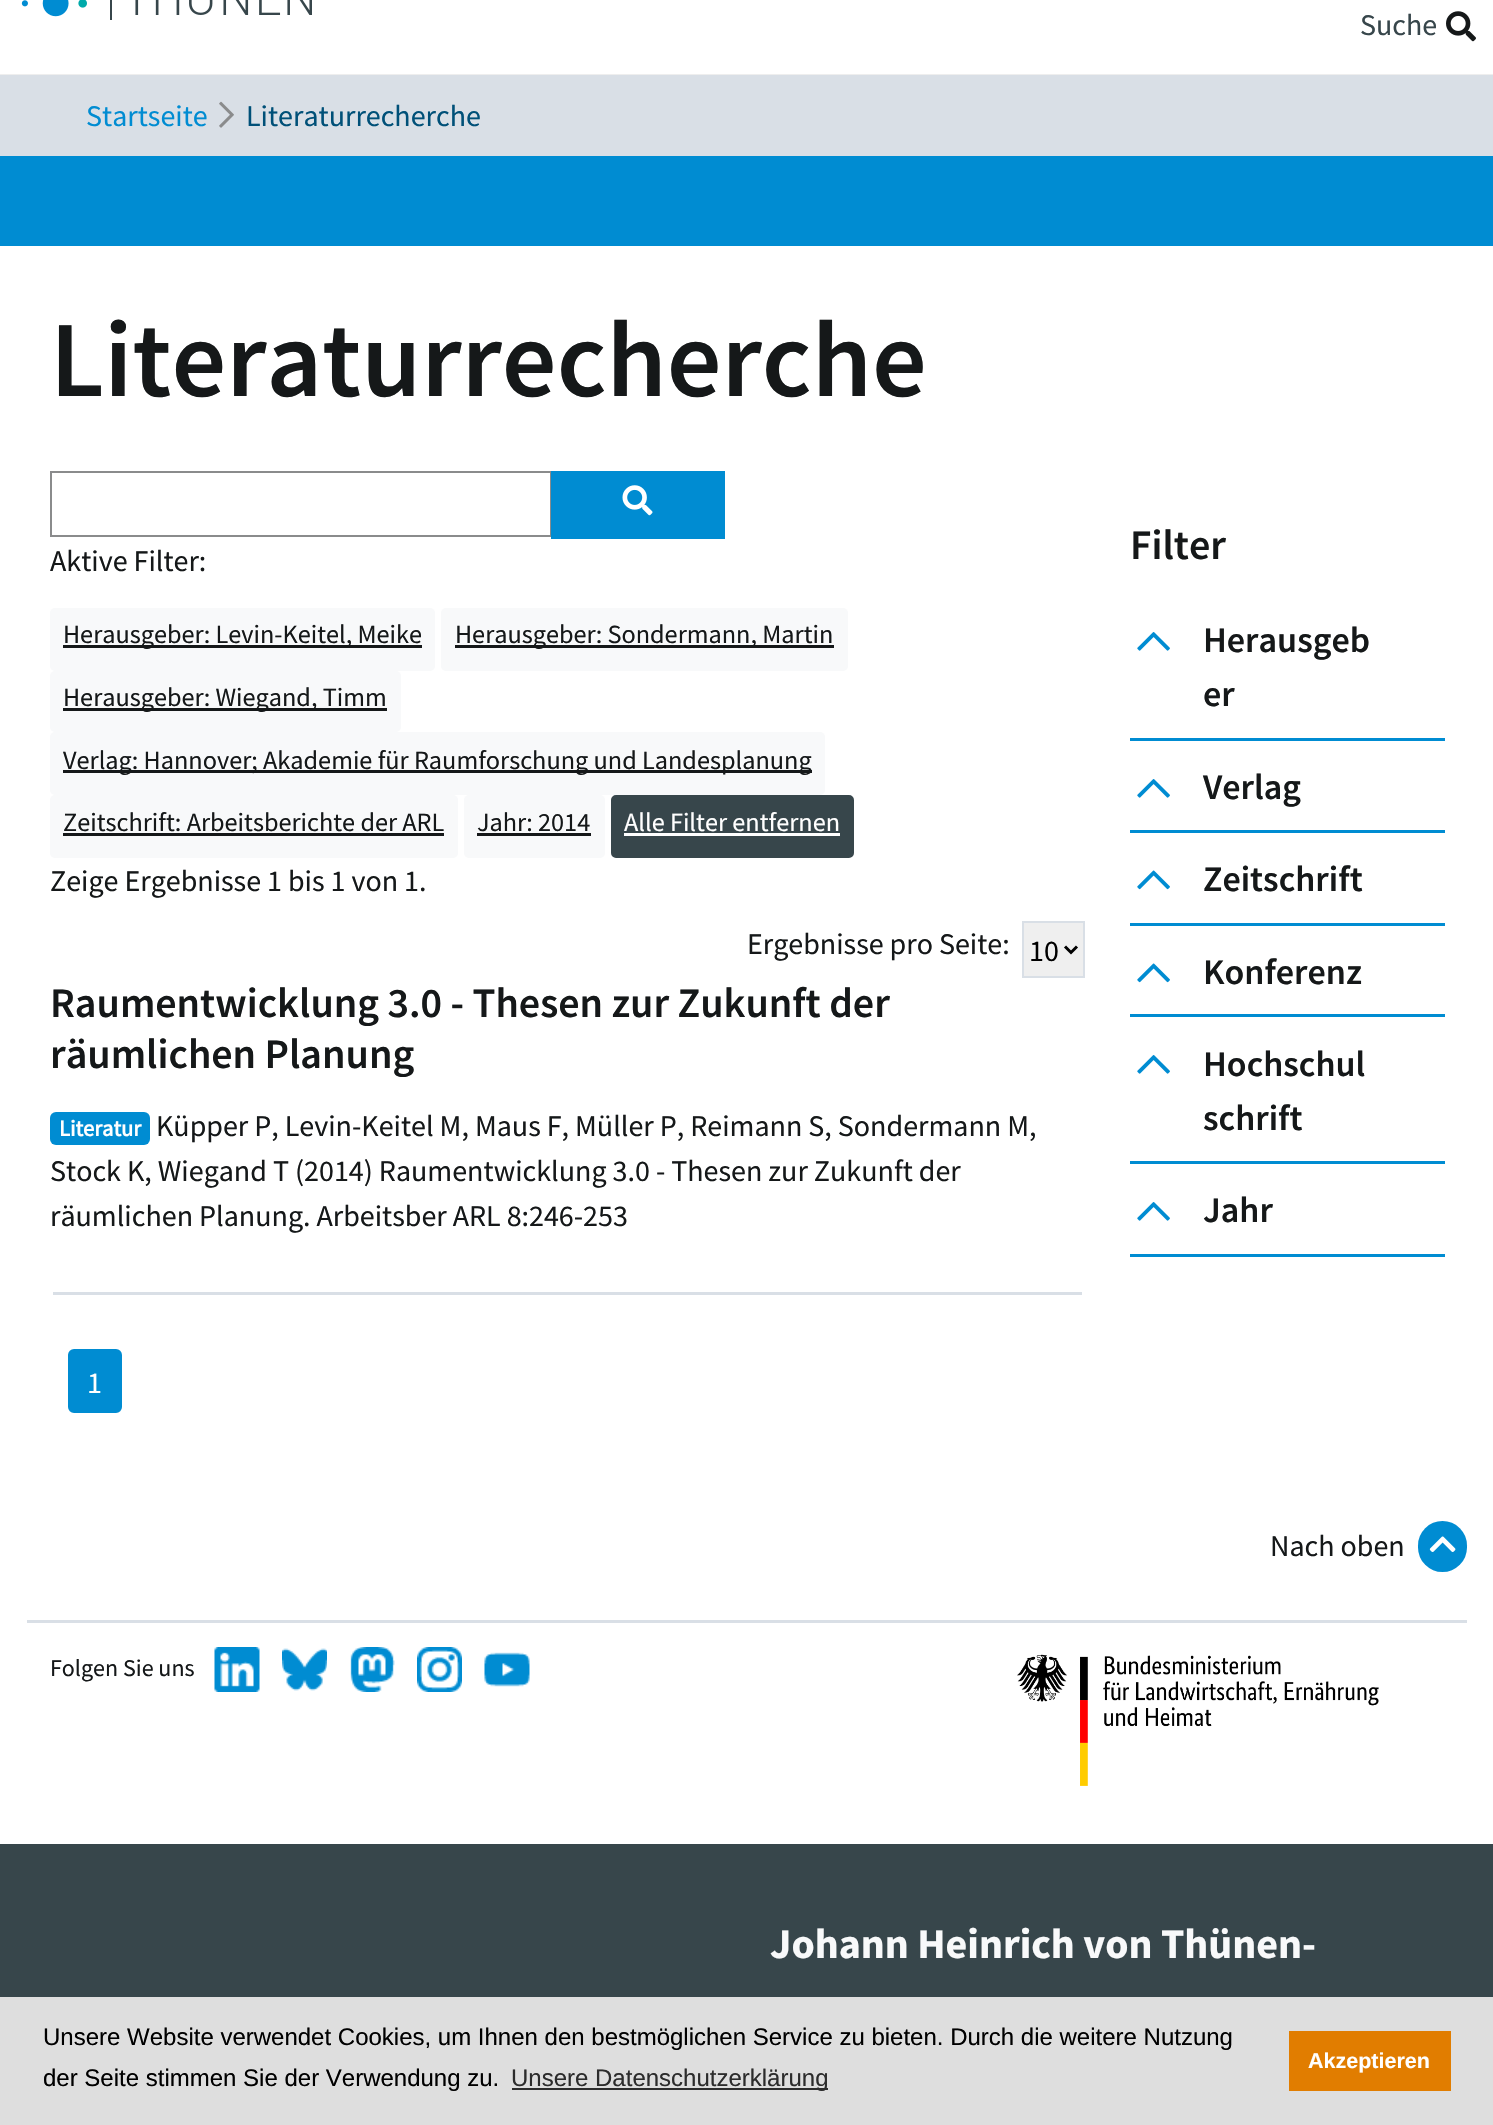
void draw(SkCanvas* canvas) {
    SkPaint paint;
    paint.setAntiAlias(true);
    canvas->clear(0xFFFFFFFF);
    paint.setColor(0xFFEEEEEE);
    canvas->drawRect(SkRect::MakeXYWH(0, 74, 1493, 1), paint);
    canvas->drawImageRect(SkImages::DeferredFromEncodedData(SkData::MakeFromFileName("img1.png")), SkRect::MakeXYWH(21, 0, 291, 20), SkSamplingOptions());
    SkFont font1(fontMgr->matchFamilyStyle("Source Sans Pro", SkFontStyle::Normal()), 30);
    font1.setSubpixel(true);
    paint.setColor(0xFF37464B);
    canvas->drawString("Suche", 1360, 35, font1, paint);
    canvas->drawImageRect(SkImages::DeferredFromEncodedData(SkData::MakeFromFileName("img2.png")), SkRect::MakeXYWH(1446, 11, 30, 31), SkSamplingOptions());
    paint.setColor(0xFFD9DFE6);
    canvas->drawRect(SkRect::MakeXYWH(0, 75, 1493, 81), paint);
    paint.setColor(0xFF008CD2);
    canvas->drawString("Startseite", 86, 126, font1, paint);
    canvas->drawImageRect(SkImages::DeferredFromEncodedData(SkData::MakeFromFileName("img3.png")), SkRect::MakeXYWH(219, 101, 15, 27), SkSamplingOptions());
    paint.setColor(0xFF005078);
    canvas->drawString("Literaturrecherche", 246, 126, font1, paint);
    paint.setColor(0xFF008CD2);
    canvas->drawRect(SkRect::MakeXYWH(0, 156, 1493, 90), paint);
    SkFont font2(fontMgr->matchFamilyStyle("Source Sans Pro", SkFontStyle(600, SkFontStyle::kNormal_Width, SkFontStyle::kUpright_Slant)), 108);
    font2.setSubpixel(true);
    paint.setColor(0xFF151819);
    canvas->drawString("Literaturrecherche", 50, 396, font2, paint);
    paint.setStyle(SkPaint::kStroke_Style);
    paint.setStrokeWidth(2);
    paint.setColor(0xFF8A8B8C);
    canvas->drawRect(SkRect::MakeXYWH(51, 472, 500, 64), paint);
    paint.setStyle(SkPaint::kFill_Style);
    paint.setColor(0xFF008CD2);
    canvas->drawRect(SkRect::MakeXYWH(551, 471, 174, 68), paint);
    canvas->drawImageRect(SkImages::DeferredFromEncodedData(SkData::MakeFromFileName("img4.png")), SkRect::MakeXYWH(622, 485, 31, 31), SkSamplingOptions());
    paint.setColor(0xFF151819);
    canvas->drawString("Aktive Filter:", 50, 571, font1, paint);
    paint.setColor(0xFFF8F9FA);
    canvas->drawRoundRect(SkRect::MakeXYWH(50, 608, 385, 63), 5, 5, paint);
    paint.setColor(0xFF151819);
    canvas->drawRect(SkRect::MakeXYWH(63, 645, 359, 3), paint);
    SkFont font3(fontMgr->matchFamilyStyle("Source Sans Pro", SkFontStyle::Normal()), 26.25f);
    font3.setSubpixel(true);
    canvas->drawString("Herausgeber: Levin-Keitel, Meike", 63, 643, font3, paint);
    paint.setColor(0xFFF8F9FA);
    canvas->drawRoundRect(SkRect::MakeXYWH(441, 608, 407, 63), 5, 5, paint);
    paint.setColor(0xFF151819);
    canvas->drawRect(SkRect::MakeXYWH(455, 645, 379, 3), paint);
    canvas->drawString("Herausgeber: Sondermann, Martin", 455, 643, font3, paint);
    paint.setColor(0xFFF8F9FA);
    canvas->drawRoundRect(SkRect::MakeXYWH(50, 671, 351, 61), 5, 5, paint);
    paint.setColor(0xFF151819);
    canvas->drawRect(SkRect::MakeXYWH(63, 708, 324, 3), paint);
    canvas->drawString("Herausgeber: Wiegand, Timm", 63, 706, font3, paint);
    paint.setColor(0xFFF8F9FA);
    canvas->drawRoundRect(SkRect::MakeXYWH(50, 732, 775, 63), 5, 5, paint);
    paint.setColor(0xFF151819);
    canvas->drawRect(SkRect::MakeXYWH(63, 770, 749, 3), paint);
    canvas->drawString("Verlag: Hannover; Akademie für Raumforschung und Landesplanung", 63, 769, font3, paint);
    paint.setColor(0xFFF8F9FA);
    canvas->drawRoundRect(SkRect::MakeXYWH(50, 795, 408, 63), 5, 5, paint);
    paint.setColor(0xFF151819);
    canvas->drawString("Zeitschrift: Arbeitsberichte der ARL", 63, 831, font3, paint);
    canvas->drawRect(SkRect::MakeXYWH(63, 833, 381, 3), paint);
    paint.setColor(0xFFF8F9FA);
    canvas->drawRoundRect(SkRect::MakeXYWH(464, 795, 141, 63), 5, 5, paint);
    paint.setColor(0xFF151819);
    canvas->drawString("Jahr: 2014", 477, 831, font3, paint);
    canvas->drawRect(SkRect::MakeXYWH(477, 833, 114, 3), paint);
    paint.setColor(0xFF37464B);
    canvas->drawRoundRect(SkRect::MakeXYWH(612, 796, 241, 61), 4, 4, paint);
    paint.setStyle(SkPaint::kStroke_Style);
    canvas->drawRoundRect(SkRect::MakeXYWH(612, 796, 241, 61), 4, 4, paint);
    paint.setStyle(SkPaint::kFill_Style);
    paint.setColor(0xFFFFFFFF);
    canvas->drawString("Alle Filter entfernen", 624, 831, font3, paint);
    canvas->drawRect(SkRect::MakeXYWH(624, 833, 216, 3), paint);
    paint.setColor(0xFF151819);
    canvas->drawString("Zeige Ergebnisse 1 bis 1 von 1.", 50, 891, font1, paint);
    canvas->drawString("Ergebnisse pro Seite:", 747, 954, font1, paint);
    paint.setColor(0xFFEFEFEF);
    canvas->drawRect(SkRect::MakeXYWH(1023, 922, 61, 55), paint);
    paint.setStyle(SkPaint::kStroke_Style);
    paint.setColor(0xFFD9DFE6);
    canvas->drawRect(SkRect::MakeXYWH(1023, 922, 61, 55), paint);
    paint.setStrokeWidth(3);
    paint.setColor(0xFF000000);
    canvas->drawPath(SkPathBuilder().moveTo(1065, 946.5f).lineTo(1071, 952.5f).lineTo(1077, 946.5f).detach(), paint);
    paint.setStyle(SkPaint::kFill_Style);
    canvas->drawString("10", 1029, 961, font1, paint);
    paint.setColor(0xFFD9DFE6);
    canvas->drawRect(SkRect::MakeXYWH(53, 1292, 1029, 3), paint);
    SkFont font4(fontMgr->matchFamilyStyle("Source Sans Pro", SkFontStyle(600, SkFontStyle::kNormal_Width, SkFontStyle::kUpright_Slant)), 42);
    font4.setSubpixel(true);
    paint.setColor(0xFF151819);
    canvas->drawString("Raumentwicklung 3.0 - Thesen zur Zukunft der", 50, 1017, font4, paint);
    canvas->drawString("räumlichen Planung", 50, 1068, font4, paint);
    paint.setColor(0xFF008CD2);
    canvas->drawRoundRect(SkRect::MakeXYWH(50, 1112, 100, 33), 6, 6, paint);
    SkFont font5(fontMgr->matchFamilyStyle("Source Sans Pro", SkFontStyle::Bold()), 22.5f);
    font5.setSubpixel(true);
    paint.setColor(0xFFFFFFFF);
    canvas->drawString("Literatur", 59, 1136, font5, paint);
    paint.setColor(0xFF151819);
    canvas->drawString("Küpper P, Levin-Keitel M, Maus F, Müller P, Reimann S, Sondermann M,", 156, 1136, font1, paint);
    canvas->drawString("Stock K, Wiegand T (2014) Raumentwicklung 3.0 - Thesen zur Zukunft der", 50, 1181, font1, paint);
    canvas->drawString("räumlichen Planung. Arbeitsber ARL 8:246-253", 50, 1226, font1, paint);
    paint.setColor(0xFF008CD2);
    canvas->drawRoundRect(SkRect::MakeXYWH(69, 1350, 52, 62), 5, 5, paint);
    paint.setStyle(SkPaint::kStroke_Style);
    paint.setStrokeWidth(2);
    canvas->drawRoundRect(SkRect::MakeXYWH(69, 1350, 52, 62), 5, 5, paint);
    paint.setStyle(SkPaint::kFill_Style);
    paint.setColor(0xFFFFFFFF);
    canvas->drawString("1", 87, 1393, font1, paint);
    paint.setColor(0xFF151819);
    canvas->drawString("Filter", 1130, 559, font4, paint);
    paint.setColor(0xFF008CD2);
    canvas->drawRect(SkRect::MakeXYWH(1130, 738, 315, 3), paint);
    canvas->drawImageRect(SkImages::DeferredFromEncodedData(SkData::MakeFromFileName("img5.png")), SkRect::MakeXYWH(1137, 632, 33, 19), SkSamplingOptions());
    SkFont font6(fontMgr->matchFamilyStyle("Source Sans Pro", SkFontStyle(600, SkFontStyle::kNormal_Width, SkFontStyle::kUpright_Slant)), 36);
    font6.setSubpixel(true);
    paint.setColor(0xFF151819);
    canvas->drawString("Herausgeb", 1203, 652, font6, paint);
    canvas->drawString("er", 1203, 706, font6, paint);
    paint.setColor(0xFF008CD2);
    canvas->drawRect(SkRect::MakeXYWH(1130, 830, 315, 3), paint);
    canvas->drawImageRect(SkImages::DeferredFromEncodedData(SkData::MakeFromFileName("img5.png")), SkRect::MakeXYWH(1137, 779, 33, 19), SkSamplingOptions());
    paint.setColor(0xFF151819);
    canvas->drawString("Verlag", 1203, 799, font6, paint);
    paint.setColor(0xFF008CD2);
    canvas->drawRect(SkRect::MakeXYWH(1130, 923, 315, 3), paint);
    canvas->drawImageRect(SkImages::DeferredFromEncodedData(SkData::MakeFromFileName("img6.png")), SkRect::MakeXYWH(1137, 870, 33, 20), SkSamplingOptions());
    paint.setColor(0xFF151819);
    canvas->drawString("Zeitschrift", 1203, 891, font6, paint);
    paint.setColor(0xFF008CD2);
    canvas->drawRect(SkRect::MakeXYWH(1130, 1014, 315, 3), paint);
    canvas->drawImageRect(SkImages::DeferredFromEncodedData(SkData::MakeFromFileName("img6.png")), SkRect::MakeXYWH(1137, 963, 33, 20), SkSamplingOptions());
    paint.setColor(0xFF151819);
    canvas->drawString("Konferenz", 1203, 984, font6, paint);
    paint.setColor(0xFF008CD2);
    canvas->drawRect(SkRect::MakeXYWH(1130, 1161, 315, 3), paint);
    canvas->drawImageRect(SkImages::DeferredFromEncodedData(SkData::MakeFromFileName("img5.png")), SkRect::MakeXYWH(1137, 1055, 33, 19), SkSamplingOptions());
    paint.setColor(0xFF151819);
    canvas->drawString("Hochschul", 1203, 1076, font6, paint);
    canvas->drawString("schrift", 1203, 1130, font6, paint);
    paint.setColor(0xFF008CD2);
    canvas->drawRect(SkRect::MakeXYWH(1130, 1254, 315, 3), paint);
    canvas->drawImageRect(SkImages::DeferredFromEncodedData(SkData::MakeFromFileName("img5.png")), SkRect::MakeXYWH(1137, 1202, 33, 19), SkSamplingOptions());
    paint.setColor(0xFF151819);
    canvas->drawString("Jahr", 1203, 1222, font6, paint);
    canvas->drawString("Nach oben", 1270, 1556, font1, paint);
    paint.setColor(0xFF008CD2);
    canvas->drawRoundRect(SkRect::MakeXYWH(1418, 1521, 49, 51), 24.5f, 24.5f, paint);
    canvas->drawImageRect(SkImages::DeferredFromEncodedData(SkData::MakeFromFileName("img7.png")), SkRect::MakeXYWH(1429, 1536, 27, 16), SkSamplingOptions());
    paint.setColor(0xFFD9DFE6);
    canvas->drawRect(SkRect::MakeXYWH(27, 1620, 1440, 3), paint);
    SkFont font7(fontMgr->matchFamilyStyle("Source Sans Pro", SkFontStyle::Normal()), 24);
    font7.setSubpixel(true);
    paint.setColor(0xFF151819);
    canvas->drawString("Folgen Sie uns", 50, 1676, font7, paint);
    canvas->drawImageRect(SkImages::DeferredFromEncodedData(SkData::MakeFromFileName("img8.png")), SkRect::MakeXYWH(214, 1647, 46, 45), SkSamplingOptions());
    canvas->drawImageRect(SkImages::DeferredFromEncodedData(SkData::MakeFromFileName("img9.png")), SkRect::MakeXYWH(282, 1648, 45, 43), SkSamplingOptions());
    canvas->drawImageRect(SkImages::DeferredFromEncodedData(SkData::MakeFromFileName("img10.png")), SkRect::MakeXYWH(350, 1647, 45, 45), SkSamplingOptions());
    canvas->drawImageRect(SkImages::DeferredFromEncodedData(SkData::MakeFromFileName("img11.png")), SkRect::MakeXYWH(417, 1647, 45, 45), SkSamplingOptions());
    canvas->drawImageRect(SkImages::DeferredFromEncodedData(SkData::MakeFromFileName("img12.png")), SkRect::MakeXYWH(484, 1652, 46, 35), SkSamplingOptions());
    canvas->drawImageRect(SkImages::DeferredFromEncodedData(SkData::MakeFromFileName("img13.png")), SkRect::MakeXYWH(1017, 1654, 362, 132), SkSamplingOptions());
    paint.setColor(0xFF37464B);
    canvas->drawRect(SkRect::MakeXYWH(0, 1844, 1493, 153), paint);
    SkFont font8(fontMgr->matchFamilyStyle("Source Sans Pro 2", SkFontStyle::Bold()), 42);
    font8.setSubpixel(true);
    paint.setColor(0xFFF8F9FA);
    canvas->drawString("Johann Heinrich von Thünen-", 770, 1958, font8, paint);
    paint.setColor(0xFFDEDEDE);
    canvas->drawRect(SkRect::MakeXYWH(0, 1997, 1493, 128), paint);
    SkFont font9(fontMgr->matchFamilyStyle("Liberation Sans", SkFontStyle::Normal()), 24);
    font9.setSubpixel(true);
    paint.setColor(0xFF000000);
    canvas->drawString("Unsere Website verwendet Cookies, um Ihnen den bestmöglichen Service zu bieten. Durch die weitere Nutzung", 43, 2045, font9, paint);
    canvas->drawString("der Seite stimmen Sie der Verwendung zu.", 43, 2086, font9, paint);
    paint.setColor(0xFF2C2C2C);
    canvas->drawRect(SkRect::MakeXYWH(512, 2088, 316, 2), paint);
    canvas->drawString("Unsere Datenschutzerklärung", 511, 2086, font9, paint);
    paint.setColor(0xFFE17D00);
    canvas->drawRect(SkRect::MakeXYWH(1289, 2031, 162, 60), paint);
    SkFont font10(fontMgr->matchFamilyStyle("Liberation Sans", SkFontStyle::Bold()), 21.5f);
    font10.setSubpixel(true);
    paint.setColor(0xFFFFFFFF);
    canvas->drawString("Akzeptieren", 1308, 2068, font10, paint);
}
